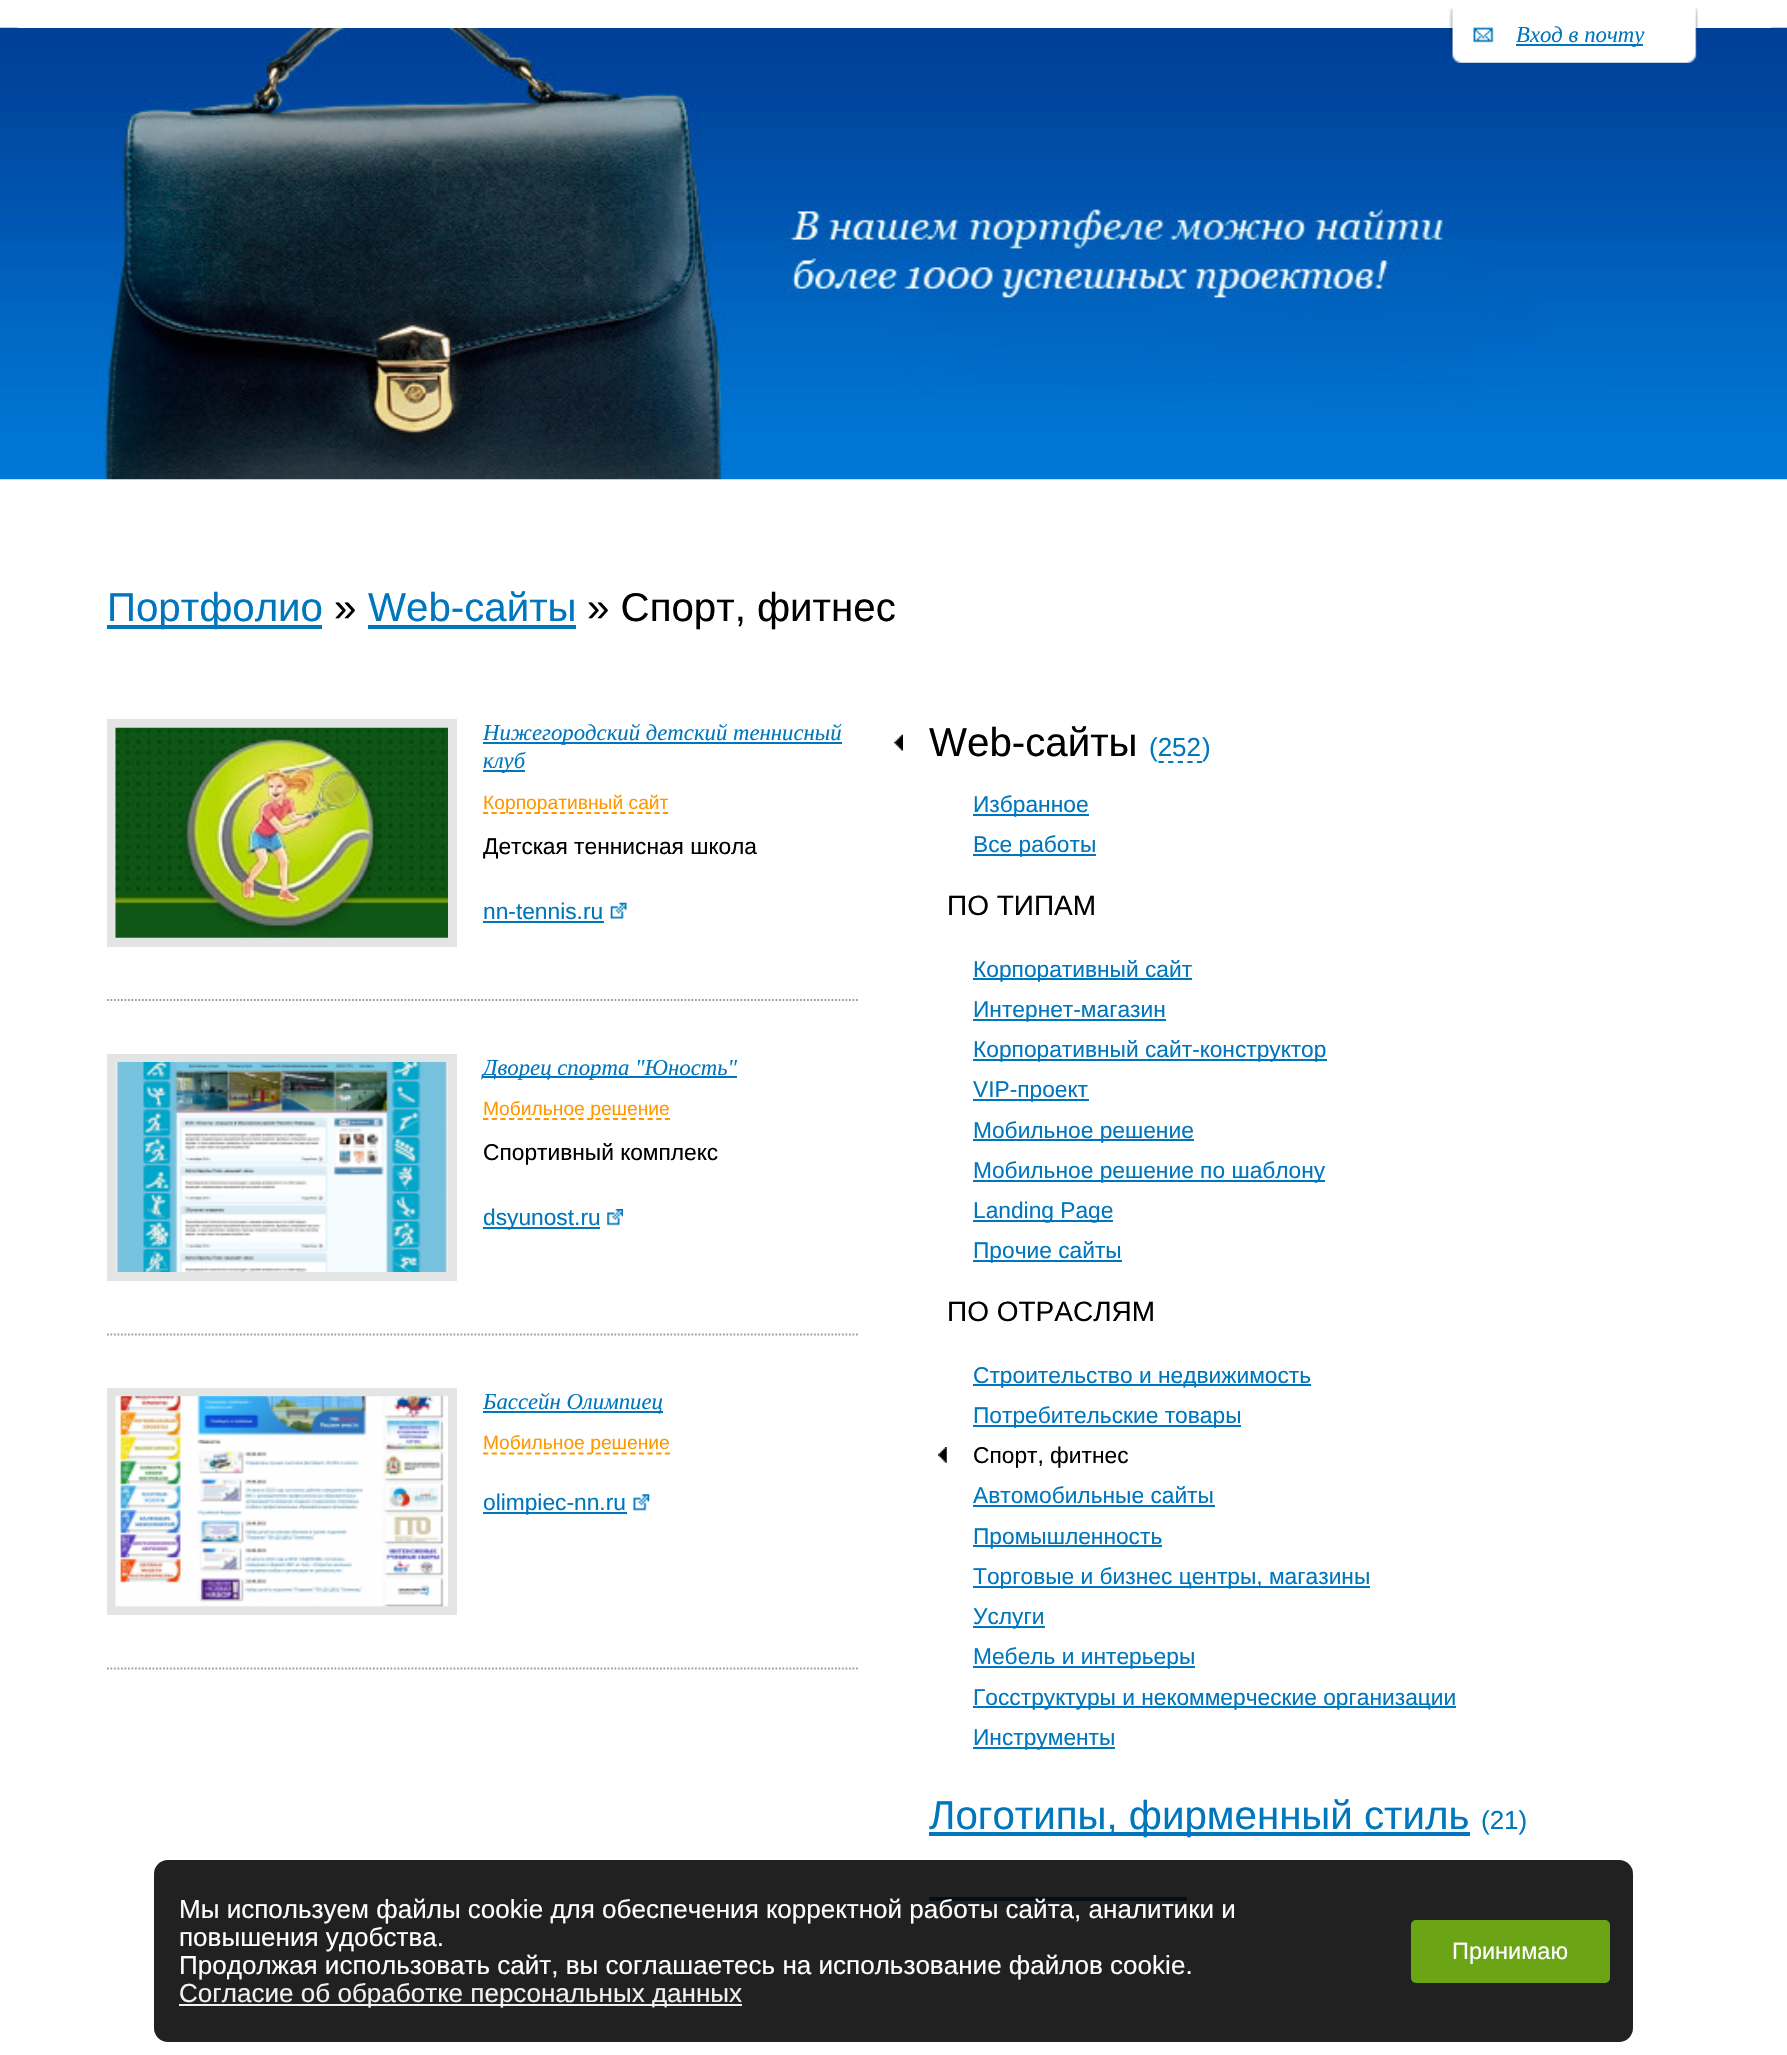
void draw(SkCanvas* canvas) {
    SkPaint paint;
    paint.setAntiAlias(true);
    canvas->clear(0xFFFFFFFF);
    canvas->drawImageRect(SkImages::DeferredFromEncodedData(SkData::MakeFromFileName("img2.png")), SkRect::MakeXYWH(0, 27, 1787, 453), SkSamplingOptions());
    paint.setStyle(SkPaint::kStroke_Style);
    paint.setStrokeWidth(2);
    paint.setColor(0xFFFFFFFF);
    canvas->drawRect(SkRect::MakeXYWH(19, -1, 1751, 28), paint);
    canvas->drawImageRect(SkImages::DeferredFromEncodedData(SkData::MakeFromFileName("img1.png")), SkRect::MakeXYWH(1449, 8, 249, 55), SkSamplingOptions());
    paint.setStyle(SkPaint::kFill_Style);
    paint.setColor(0xFF0076BD);
    canvas->drawRect(SkRect::MakeXYWH(1516, 44, 127, 2), paint);
    SkFont font1(fontMgr->matchFamilyStyle("Liberation Serif", SkFontStyle::Italic()), 22.75f);
    font1.setSubpixel(true);
    canvas->drawString("Вход в почту", 1516, 42, font1, paint);
    canvas->drawRect(SkRect::MakeXYWH(107, 625, 215, 4), paint);
    SkFont font2(fontMgr->matchFamilyStyle("Liberation Sans", SkFontStyle::Normal()), 40.25f);
    font2.setSubpixel(true);
    canvas->drawString("Портфолио", 107, 621, font2, paint);
    paint.setColor(0xFF000000);
    canvas->drawString("»", 334, 621, font2, paint);
    paint.setColor(0xFF0076BD);
    canvas->drawString("Web-сайты", 368, 621, font2, paint);
    canvas->drawRect(SkRect::MakeXYWH(368, 625, 208, 4), paint);
    paint.setColor(0xFF000000);
    canvas->drawString("» Спорт, фитнес", 587, 621, font2, paint);
    paint.setStyle(SkPaint::kStroke_Style);
    paint.setStrokeWidth(1.8f);
    paint.setColor(0xFF9C9E9F);
    paint.setPathEffect(SkDashPathEffect::Make({{1.75f, 1.75f}}, 0));
    canvas->drawPath(SkPathBuilder().moveTo(107, 1000).lineTo(859, 1000).detach(), paint);
    paint.setPathEffect(nullptr);
    paint.setStrokeWidth(9);
    paint.setColor(0xFFE3E4E4);
    canvas->drawRect(SkRect::MakeXYWH(111.5f, 723.5f, 341, 219), paint);
    canvas->drawImageRect(SkImages::DeferredFromEncodedData(SkData::MakeFromFileName("img3.png")), SkRect::MakeXYWH(115, 727, 333, 211), SkSamplingOptions());
    paint.setStyle(SkPaint::kFill_Style);
    paint.setColor(0xFF0076BD);
    canvas->drawRect(SkRect::MakeXYWH(483, 742, 359, 2), paint);
    canvas->drawString("Нижегородский детский теннисный", 483, 740, font1, paint);
    canvas->drawRect(SkRect::MakeXYWH(483, 770, 42, 2), paint);
    canvas->drawString("клуб", 483, 768, font1, paint);
    paint.setStyle(SkPaint::kStroke_Style);
    paint.setStrokeWidth(1.8f);
    paint.setColor(0xFFFF9701);
    paint.setPathEffect(SkDashPathEffect::Make({{5.25f, 3.32f}}, 0));
    canvas->drawPath(SkPathBuilder().moveTo(483, 813).lineTo(668.5f, 813).detach(), paint);
    paint.setPathEffect(nullptr);
    SkFont font3(fontMgr->matchFamilyStyle("Liberation Sans", SkFontStyle::Normal()), 19.25f);
    font3.setSubpixel(true);
    paint.setStyle(SkPaint::kFill_Style);
    canvas->drawString("Корпоративный сайт", 483, 809, font3, paint);
    SkFont font4(fontMgr->matchFamilyStyle("Liberation Sans", SkFontStyle::Normal()), 22.75f);
    font4.setSubpixel(true);
    paint.setColor(0xFF000000);
    canvas->drawString("Детская теннисная школа", 483, 854, font4, paint);
    paint.setColor(0xFF0076BD);
    canvas->drawString("nn-tennis.ru", 483, 919, font4, paint);
    canvas->drawRect(SkRect::MakeXYWH(483, 921, 121, 2), paint);
    canvas->drawImageRect(SkImages::DeferredFromEncodedData(SkData::MakeFromFileName("img4.png")), SkRect::MakeXYWH(610, 902, 17, 17), SkSamplingOptions());
    paint.setStyle(SkPaint::kStroke_Style);
    paint.setColor(0xFF9C9E9F);
    paint.setPathEffect(SkDashPathEffect::Make({{1.75f, 1.75f}}, 0));
    canvas->drawPath(SkPathBuilder().moveTo(107, 1334.5f).lineTo(859, 1334.5f).detach(), paint);
    paint.setPathEffect(nullptr);
    paint.setStrokeWidth(9);
    paint.setColor(0xFFE3E4E4);
    canvas->drawRect(SkRect::MakeXYWH(111.5f, 1058.5f, 341, 218), paint);
    canvas->drawImageRect(SkImages::DeferredFromEncodedData(SkData::MakeFromFileName("img5.png")), SkRect::MakeXYWH(115, 1062, 333, 210), SkSamplingOptions());
    paint.setStyle(SkPaint::kFill_Style);
    paint.setColor(0xFF0076BD);
    canvas->drawRect(SkRect::MakeXYWH(483, 1076, 254, 2), paint);
    canvas->drawString("Дворец спорта \"Юность\"", 483, 1075, font1, paint);
    paint.setStyle(SkPaint::kStroke_Style);
    paint.setStrokeWidth(1.8f);
    paint.setColor(0xFFFF9701);
    paint.setPathEffect(SkDashPathEffect::Make({{5.25f, 3.41f}}, 0));
    canvas->drawPath(SkPathBuilder().moveTo(483, 1119).lineTo(670, 1119).detach(), paint);
    paint.setPathEffect(nullptr);
    paint.setStyle(SkPaint::kFill_Style);
    canvas->drawString("Мобильное решение", 483, 1115, font3, paint);
    paint.setColor(0xFF000000);
    canvas->drawString("Спортивный комплекс", 483, 1160, font4, paint);
    paint.setColor(0xFF0076BD);
    canvas->drawRect(SkRect::MakeXYWH(483, 1227, 117, 2), paint);
    canvas->drawString("dsyunost.ru", 483, 1225, font4, paint);
    canvas->drawImageRect(SkImages::DeferredFromEncodedData(SkData::MakeFromFileName("img6.png")), SkRect::MakeXYWH(607, 1209, 16, 17), SkSamplingOptions());
    paint.setStyle(SkPaint::kStroke_Style);
    paint.setColor(0xFF9C9E9F);
    paint.setPathEffect(SkDashPathEffect::Make({{1.75f, 1.75f}}, 0));
    canvas->drawPath(SkPathBuilder().moveTo(107, 1668.5f).lineTo(859, 1668.5f).detach(), paint);
    paint.setPathEffect(nullptr);
    paint.setStrokeWidth(9);
    paint.setColor(0xFFE3E4E4);
    canvas->drawRect(SkRect::MakeXYWH(111.5f, 1392.5f, 341, 218), paint);
    canvas->drawImageRect(SkImages::DeferredFromEncodedData(SkData::MakeFromFileName("img7.png")), SkRect::MakeXYWH(115, 1396, 333, 211), SkSamplingOptions());
    paint.setStyle(SkPaint::kFill_Style);
    paint.setColor(0xFF0076BD);
    canvas->drawRect(SkRect::MakeXYWH(483, 1411, 180, 2), paint);
    canvas->drawString("Бассейн Олимпиец", 483, 1409, font1, paint);
    paint.setStyle(SkPaint::kStroke_Style);
    paint.setStrokeWidth(1.8f);
    paint.setColor(0xFFFF9701);
    paint.setPathEffect(SkDashPathEffect::Make({{5.25f, 3.41f}}, 0));
    canvas->drawPath(SkPathBuilder().moveTo(483, 1453.5f).lineTo(670, 1453.5f).detach(), paint);
    paint.setPathEffect(nullptr);
    paint.setStyle(SkPaint::kFill_Style);
    canvas->drawString("Мобильное решение", 483, 1449, font3, paint);
    paint.setColor(0xFF0076BD);
    canvas->drawRect(SkRect::MakeXYWH(483, 1512, 144, 2), paint);
    canvas->drawString("olimpiec-nn.ru", 483, 1510, font4, paint);
    canvas->drawImageRect(SkImages::DeferredFromEncodedData(SkData::MakeFromFileName("img8.png")), SkRect::MakeXYWH(633, 1494, 17, 17), SkSamplingOptions());
    canvas->drawImageRect(SkImages::DeferredFromEncodedData(SkData::MakeFromFileName("img9.png")), SkRect::MakeXYWH(894, 734, 9, 17), SkSamplingOptions());
    paint.setColor(0xFF000000);
    canvas->drawString("Web-сайты", 929, 756, font2, paint);
    SkFont font5(fontMgr->matchFamilyStyle("Liberation Sans", SkFontStyle::Normal()), 26);
    font5.setSubpixel(true);
    paint.setColor(0xFF0076BD);
    canvas->drawString("(252", 1149, 756, font5, paint);
    paint.setStyle(SkPaint::kStroke_Style);
    paint.setPathEffect(SkDashPathEffect::Make({{5.25f, 4.38f}}, 0));
    canvas->drawPath(SkPathBuilder().moveTo(1158.5f, 762).lineTo(1202, 762).detach(), paint);
    paint.setPathEffect(nullptr);
    paint.setStyle(SkPaint::kFill_Style);
    canvas->drawString(")", 1202, 756, font5, paint);
    canvas->drawRect(SkRect::MakeXYWH(973, 814, 116, 2), paint);
    canvas->drawString("Избранное", 973, 812, font4, paint);
    canvas->drawRect(SkRect::MakeXYWH(973, 854, 123, 2), paint);
    canvas->drawString("Все работы", 973, 852, font4, paint);
    SkFont font6(fontMgr->matchFamilyStyle("Liberation Sans", SkFontStyle::Normal()), 28);
    font6.setSubpixel(true);
    paint.setColor(0xFF000000);
    canvas->drawString("ПО ТИПАМ", 947, 915, font6, paint);
    paint.setColor(0xFF0076BD);
    canvas->drawRect(SkRect::MakeXYWH(973, 978, 219, 2), paint);
    canvas->drawString("Корпоративный сайт", 973, 977, font4, paint);
    canvas->drawRect(SkRect::MakeXYWH(973, 1019, 193, 2), paint);
    canvas->drawString("Интернет-магазин", 973, 1017, font4, paint);
    canvas->drawRect(SkRect::MakeXYWH(973, 1059, 354, 2), paint);
    canvas->drawString("Корпоративный сайт-конструктор", 973, 1057, font4, paint);
    canvas->drawRect(SkRect::MakeXYWH(973, 1099, 116, 2), paint);
    canvas->drawString("VIP-проект", 973, 1097, font4, paint);
    canvas->drawRect(SkRect::MakeXYWH(973, 1139, 221, 2), paint);
    canvas->drawString("Мобильное решение", 973, 1138, font4, paint);
    canvas->drawRect(SkRect::MakeXYWH(973, 1180, 352, 2), paint);
    canvas->drawString("Мобильное решение по шаблону", 973, 1178, font4, paint);
    canvas->drawRect(SkRect::MakeXYWH(973, 1220, 140, 2), paint);
    canvas->drawString("Landing Page", 973, 1218, font4, paint);
    canvas->drawRect(SkRect::MakeXYWH(973, 1260, 149, 2), paint);
    canvas->drawString("Прочие сайты", 973, 1258, font4, paint);
    paint.setColor(0xFF000000);
    canvas->drawString("ПО ОТРАСЛЯМ", 947, 1321, font6, paint);
    paint.setColor(0xFF0076BD);
    canvas->drawRect(SkRect::MakeXYWH(973, 1384, 338, 2), paint);
    canvas->drawString("Строительство и недвижимость", 973, 1383, font4, paint);
    canvas->drawRect(SkRect::MakeXYWH(973, 1425, 268, 2), paint);
    canvas->drawString("Потребительские товары", 973, 1423, font4, paint);
    canvas->drawImageRect(SkImages::DeferredFromEncodedData(SkData::MakeFromFileName("img10.png")), SkRect::MakeXYWH(938, 1447, 9, 16), SkSamplingOptions());
    paint.setColor(0xFF000000);
    canvas->drawString("Спорт, фитнес", 973, 1463, font4, paint);
    paint.setColor(0xFF0076BD);
    canvas->drawString("Автомобильные сайты", 973, 1503, font4, paint);
    canvas->drawRect(SkRect::MakeXYWH(973, 1505, 242, 2), paint);
    canvas->drawRect(SkRect::MakeXYWH(973, 1545, 189, 2), paint);
    canvas->drawString("Промышленность", 973, 1544, font4, paint);
    canvas->drawRect(SkRect::MakeXYWH(973, 1586, 397, 2), paint);
    canvas->drawString("Торговые и бизнес центры, магазины", 973, 1584, font4, paint);
    canvas->drawRect(SkRect::MakeXYWH(973, 1626, 72, 2), paint);
    canvas->drawString("Услуги", 973, 1624, font4, paint);
    canvas->drawRect(SkRect::MakeXYWH(973, 1666, 222, 2), paint);
    canvas->drawString("Мебель и интерьеры", 973, 1664, font4, paint);
    canvas->drawRect(SkRect::MakeXYWH(973, 1706, 483, 2), paint);
    canvas->drawString("Госструктуры и некоммерческие организации", 973, 1705, font4, paint);
    canvas->drawRect(SkRect::MakeXYWH(973, 1747, 142, 2), paint);
    canvas->drawString("Инструменты", 973, 1745, font4, paint);
    canvas->drawRect(SkRect::MakeXYWH(929, 1832, 541, 4), paint);
    canvas->drawString("Логотипы, фирменный стиль", 929, 1829, font2, paint);
    canvas->drawString("(21)", 1481, 1829, font5, paint);
    canvas->drawRect(SkRect::MakeXYWH(929, 1897, 258, 4), paint);
    paint.setColor(0xDE000000);
    canvas->drawRoundRect(SkRect::MakeXYWH(154, 1860, 1479, 182), 14, 14, paint);
    SkFont font7(fontMgr->matchFamilyStyle("Liberation Sans", SkFontStyle::Normal()), 26.05f);
    font7.setSubpixel(true);
    paint.setColor(0xFFFFFFFF);
    canvas->drawString("Мы используем файлы cookie для обеспечения корректной работы сайта, аналитики и", 179, 1918, font7, paint);
    canvas->drawString("повышения удобства.", 179, 1946, font7, paint);
    canvas->drawString("Продолжая использовать сайт, вы соглашаетесь на использование файлов cookie.", 179, 1974, font7, paint);
    paint.setColor(0xFFF1F1F1);
    canvas->drawRect(SkRect::MakeXYWH(179, 2004, 563, 2), paint);
    canvas->drawString("Согласие об обработке персональных данных", 179, 2002, font7, paint);
    paint.setColor(0xFF6BA414);
    canvas->drawRoundRect(SkRect::MakeXYWH(1411, 1920, 199, 63), 5, 5, paint);
    SkFont font8(fontMgr->matchFamilyStyle("Liberation Sans", SkFontStyle::Normal()), 23.5f);
    font8.setSubpixel(true);
    paint.setColor(0xFFFFFFFF);
    canvas->drawString("Принимаю", 1452, 1959, font8, paint);
}
